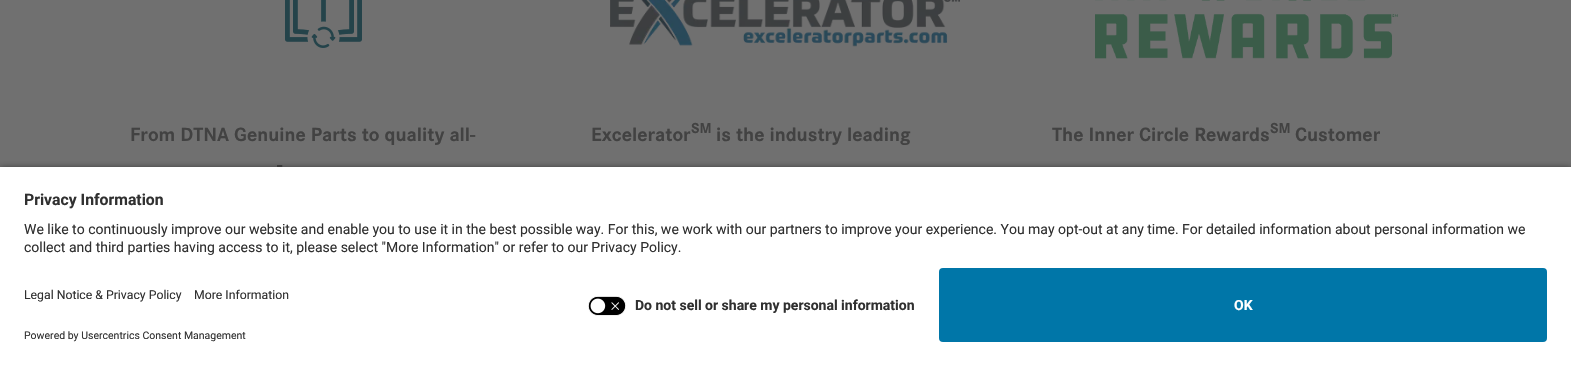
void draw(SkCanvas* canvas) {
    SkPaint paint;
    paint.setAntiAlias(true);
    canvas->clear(0xFF707070);
    canvas->drawImageRect(SkImages::DeferredFromEncodedData(SkData::MakeFromFileName("img1.png")), SkRect::MakeXYWH(285, 0, 77, 48), SkSamplingOptions());
    SkFont font1(fontMgr->matchFamilyStyle("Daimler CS", SkFontStyle::Bold()), 20);
    font1.setSubpixel(true);
    paint.setColor(0xFF424242);
    canvas->drawString("From DTNA Genuine Parts to quality all-", 130, 141, font1, paint);
    canvas->drawString("-", 277, 171, font1, paint);
    canvas->drawImageRect(SkImages::DeferredFromEncodedData(SkData::MakeFromFileName("img2.png")), SkRect::MakeXYWH(610, 0, 350, 47), SkSamplingOptions());
    canvas->drawString("Excelerator", 591, 141, font1, paint);
    SkFont font2(fontMgr->matchFamilyStyle("Daimler CS", SkFontStyle::Bold()), 15);
    font2.setSubpixel(true);
    canvas->drawString("SM", 691, 133, font2, paint);
    canvas->drawString("is the industry leading", 716, 141, font1, paint);
    canvas->drawImageRect(SkImages::DeferredFromEncodedData(SkData::MakeFromFileName("img3.png")), SkRect::MakeXYWH(1095, 0, 303, 59), SkSamplingOptions());
    canvas->drawString("The Inner Circle Rewards", 1052, 141, font1, paint);
    canvas->drawString("SM", 1270, 133, font2, paint);
    canvas->drawString("Customer", 1295, 141, font1, paint);
    paint.setColor(0xCC000000);
    paint.setMaskFilter(SkMaskFilter::MakeBlur(kNormal_SkBlurStyle, 3.5f));
    canvas->drawRect(SkRect::MakeXYWH(0, 169, 1571, 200), paint);
    paint.setMaskFilter(nullptr);
    paint.setColor(0xFFFFFFFF);
    canvas->drawRect(SkRect::MakeXYWH(0, 167, 1571, 199), paint);
    SkFont font3(fontMgr->matchFamilyStyle("Roboto", SkFontStyle::Bold()), 15.75f);
    font3.setSubpixel(true);
    paint.setColor(0xFF303030);
    canvas->drawString("Privacy Information", 24, 205, font3, paint);
    SkFont font4(fontMgr->matchFamilyStyle("Roboto", SkFontStyle::Normal()), 14);
    font4.setSubpixel(true);
    canvas->drawString("We like to continuously improve our website and enable you to use it in the best possible way. For this, we work with our partners to improve your experience. You may opt-out at any time. For detailed information about personal information we", 24, 234, font4, paint);
    canvas->drawString("collect and third parties having access to it, please select \"More Information\" or refer to our Privacy Policy.", 24, 252, font4, paint);
    SkFont font5(fontMgr->matchFamilyStyle("Roboto", SkFontStyle::Normal()), 12.25f);
    font5.setSubpixel(true);
    canvas->drawString("Legal Notice & Privacy Policy", 24, 299, font5, paint);
    canvas->drawString("More Information", 194, 299, font5, paint);
    SkFont font6(fontMgr->matchFamilyStyle("Roboto", SkFontStyle::Normal()), 10.5f);
    font6.setSubpixel(true);
    canvas->drawString("Powered by Usercentrics Consent Management", 24, 339, font6, paint);
    canvas->drawImageRect(SkImages::DeferredFromEncodedData(SkData::MakeFromFileName("img4.png")), SkRect::MakeXYWH(588, 296, 38, 20), SkSamplingOptions());
    SkFont font7(fontMgr->matchFamilyStyle("Roboto", SkFontStyle::Bold()), 14);
    font7.setSubpixel(true);
    canvas->drawString("Do not sell or share my personal information", 635, 310, font7, paint);
    paint.setColor(0xFF0076A8);
    canvas->drawRoundRect(SkRect::MakeXYWH(939, 268, 608, 74), 4, 4, paint);
    paint.setColor(0xFFFFFFFF);
    canvas->drawString("OK", 1234, 310, font7, paint);
}
